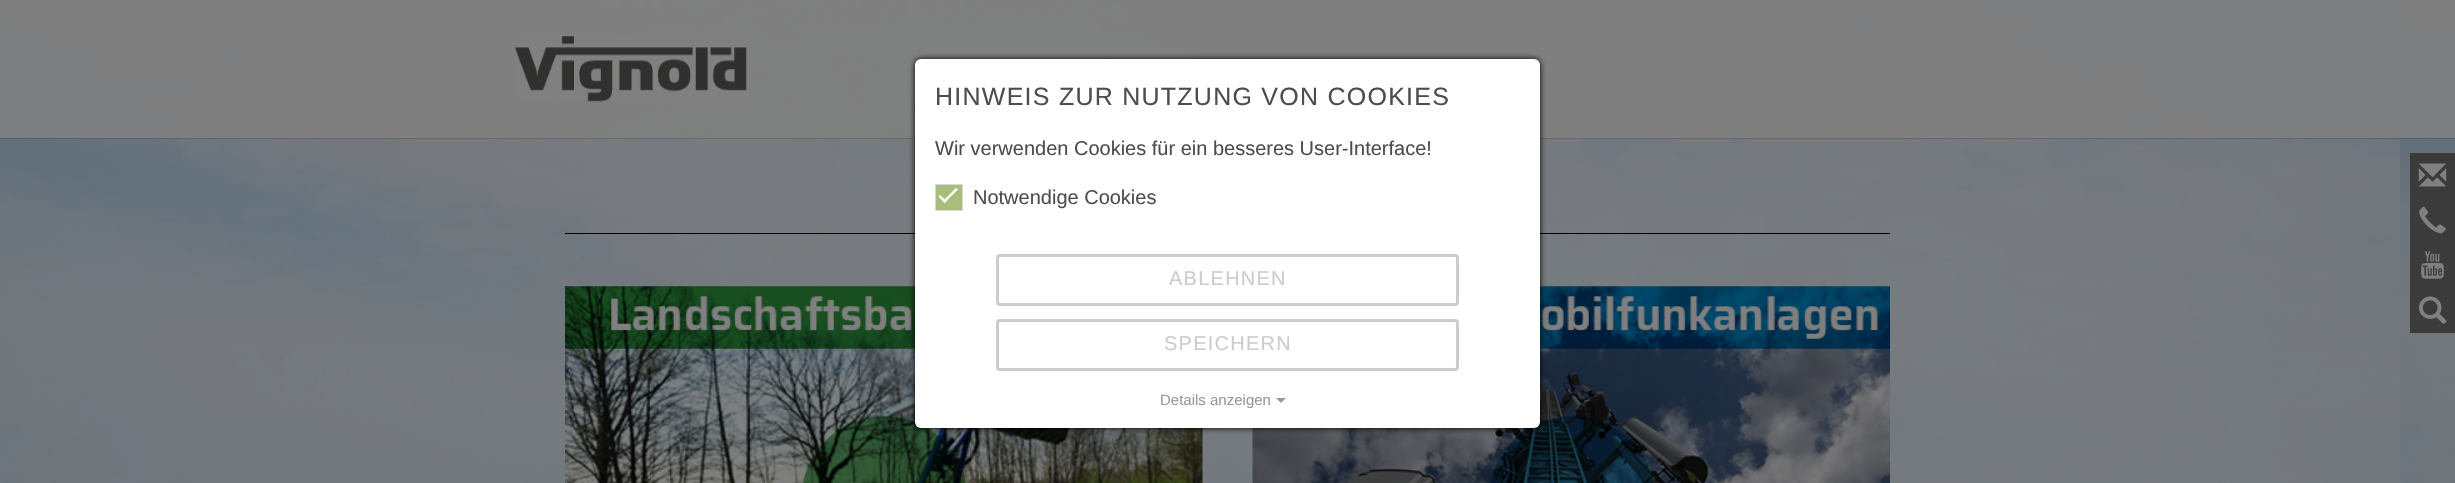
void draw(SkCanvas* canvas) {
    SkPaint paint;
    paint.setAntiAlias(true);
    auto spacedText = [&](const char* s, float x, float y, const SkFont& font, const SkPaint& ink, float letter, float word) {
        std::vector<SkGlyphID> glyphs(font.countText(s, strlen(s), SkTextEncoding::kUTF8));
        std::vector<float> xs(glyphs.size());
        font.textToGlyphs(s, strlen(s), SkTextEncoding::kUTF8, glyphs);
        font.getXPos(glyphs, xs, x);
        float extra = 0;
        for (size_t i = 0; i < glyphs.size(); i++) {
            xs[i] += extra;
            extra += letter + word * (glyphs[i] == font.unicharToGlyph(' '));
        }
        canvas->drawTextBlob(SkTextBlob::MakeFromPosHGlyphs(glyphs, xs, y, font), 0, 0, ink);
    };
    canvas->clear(0xFFFFFFFF);
    canvas->drawImageRect(SkImages::DeferredFromEncodedData(SkData::MakeFromFileName("img1.png")), SkRect::MakeXYWH(0, 0, 2455, 483), SkSamplingOptions());
    paint.setColor(0x24000000);
    canvas->drawRect(SkRect::MakeXYWH(0, 138, 2455, 1), paint);
    paint.setColor(0xE6808080);
    canvas->drawRect(SkRect::MakeXYWH(0, 0, 2455, 138), paint);
    canvas->drawImageRect(SkImages::DeferredFromEncodedData(SkData::MakeFromFileName("img2.png")), SkRect::MakeXYWH(515, 36, 232, 66), SkSamplingOptions());
    paint.setColor(0xFF000000);
    canvas->drawRect(SkRect::MakeXYWH(565, 233, 1325, 1), paint);
    canvas->drawImageRect(SkImages::DeferredFromEncodedData(SkData::MakeFromFileName("img3.png")), SkRect::MakeXYWH(565, 286, 638, 197), SkSamplingOptions());
    canvas->drawImageRect(SkImages::DeferredFromEncodedData(SkData::MakeFromFileName("img4.png")), SkRect::MakeXYWH(1252, 286, 638, 197), SkSamplingOptions());
    paint.setColor(0xFF3B3B3B);
    canvas->drawRect(SkRect::MakeXYWH(2410, 153, 45, 180), paint);
    canvas->drawImageRect(SkImages::DeferredFromEncodedData(SkData::MakeFromFileName("img5.png")), SkRect::MakeXYWH(2418, 163, 29, 24), SkSamplingOptions());
    canvas->drawImageRect(SkImages::DeferredFromEncodedData(SkData::MakeFromFileName("img6.png")), SkRect::MakeXYWH(2419, 206, 27, 28), SkSamplingOptions());
    canvas->drawImageRect(SkImages::DeferredFromEncodedData(SkData::MakeFromFileName("img7.png")), SkRect::MakeXYWH(2421, 251, 23, 28), SkSamplingOptions());
    canvas->drawImageRect(SkImages::DeferredFromEncodedData(SkData::MakeFromFileName("img8.png")), SkRect::MakeXYWH(2419, 296, 28, 28), SkSamplingOptions());
    paint.setColor(0xFF000000);
    paint.setMaskFilter(SkMaskFilter::MakeBlur(kNormal_SkBlurStyle, 3));
    canvas->drawRoundRect(SkRect::MakeXYWH(915, 59, 625, 369), 6, 6, paint);
    paint.setMaskFilter(nullptr);
    paint.setColor(0xFFFFFFFF);
    canvas->drawRoundRect(SkRect::MakeXYWH(915, 59, 625, 369), 6, 6, paint);
    SkFont font1(fontMgr->matchFamilyStyle("Liberation Sans", SkFontStyle::Normal()), 25);
    font1.setSubpixel(true);
    paint.setColor(0xFF4D4D4D);
    spacedText("HINWEIS ZUR NUTZUNG VON COOKIES", 935, 105, font1, paint, 1.25f, 0);
    SkFont font2(fontMgr->matchFamilyStyle("Liberation Sans", SkFontStyle::Normal()), 20);
    font2.setSubpixel(true);
    canvas->drawString("Wir verwenden Cookies für ein besseres User-Interface!", 935, 155, font2, paint);
    paint.setColor(0xFFA9BE7A);
    canvas->drawRect(SkRect::MakeXYWH(935.5f, 184.5f, 27, 26), paint);
    paint.setStyle(SkPaint::kStroke_Style);
    paint.setStrokeWidth(1);
    paint.setColor(0xFFD9D9D9);
    canvas->drawRect(SkRect::MakeXYWH(935.5f, 184.5f, 27, 26), paint);
    paint.setStyle(SkPaint::kFill_Style);
    paint.setColor(0xFFFFFFFF);
    canvas->drawPath(SkPathBuilder().moveTo(956, 188).lineTo(958, 189.5f).lineTo(944.5f, 203).lineTo(943, 201).close().detach(), paint);
    canvas->drawPath(SkPathBuilder().moveTo(940, 195).lineTo(946.5f, 201).lineTo(944.5f, 203).lineTo(938.5f, 196.5f).close().detach(), paint);
    paint.setColor(0xFF4D4D4D);
    canvas->drawString("Notwendige Cookies", 973, 204, font2, paint);
    paint.setStyle(SkPaint::kStroke_Style);
    paint.setStrokeWidth(3);
    paint.setColor(0xFFCCCCCC);
    canvas->drawRoundRect(SkRect::MakeXYWH(997.5f, 255.5f, 460, 49), 2.5f, 2.5f, paint);
    paint.setStyle(SkPaint::kFill_Style);
    spacedText("ABLEHNEN", 1169, 285, font2, paint, 1.25f, 0);
    paint.setStyle(SkPaint::kStroke_Style);
    canvas->drawRoundRect(SkRect::MakeXYWH(997.5f, 320.5f, 460, 49), 2.5f, 2.5f, paint);
    paint.setStyle(SkPaint::kFill_Style);
    spacedText("SPEICHERN", 1164, 350, font2, paint, 1.25f, 0);
    SkFont font3(fontMgr->matchFamilyStyle("Liberation Sans", SkFontStyle::Normal()), 15);
    font3.setSubpixel(true);
    paint.setColor(0xFF999999);
    canvas->drawString("Details anzeigen", 1160, 405, font3, paint);
    canvas->drawPath(SkPathBuilder().moveTo(1276, 398).lineTo(1286, 398).lineTo(1281, 403).close().detach(), paint);
}
